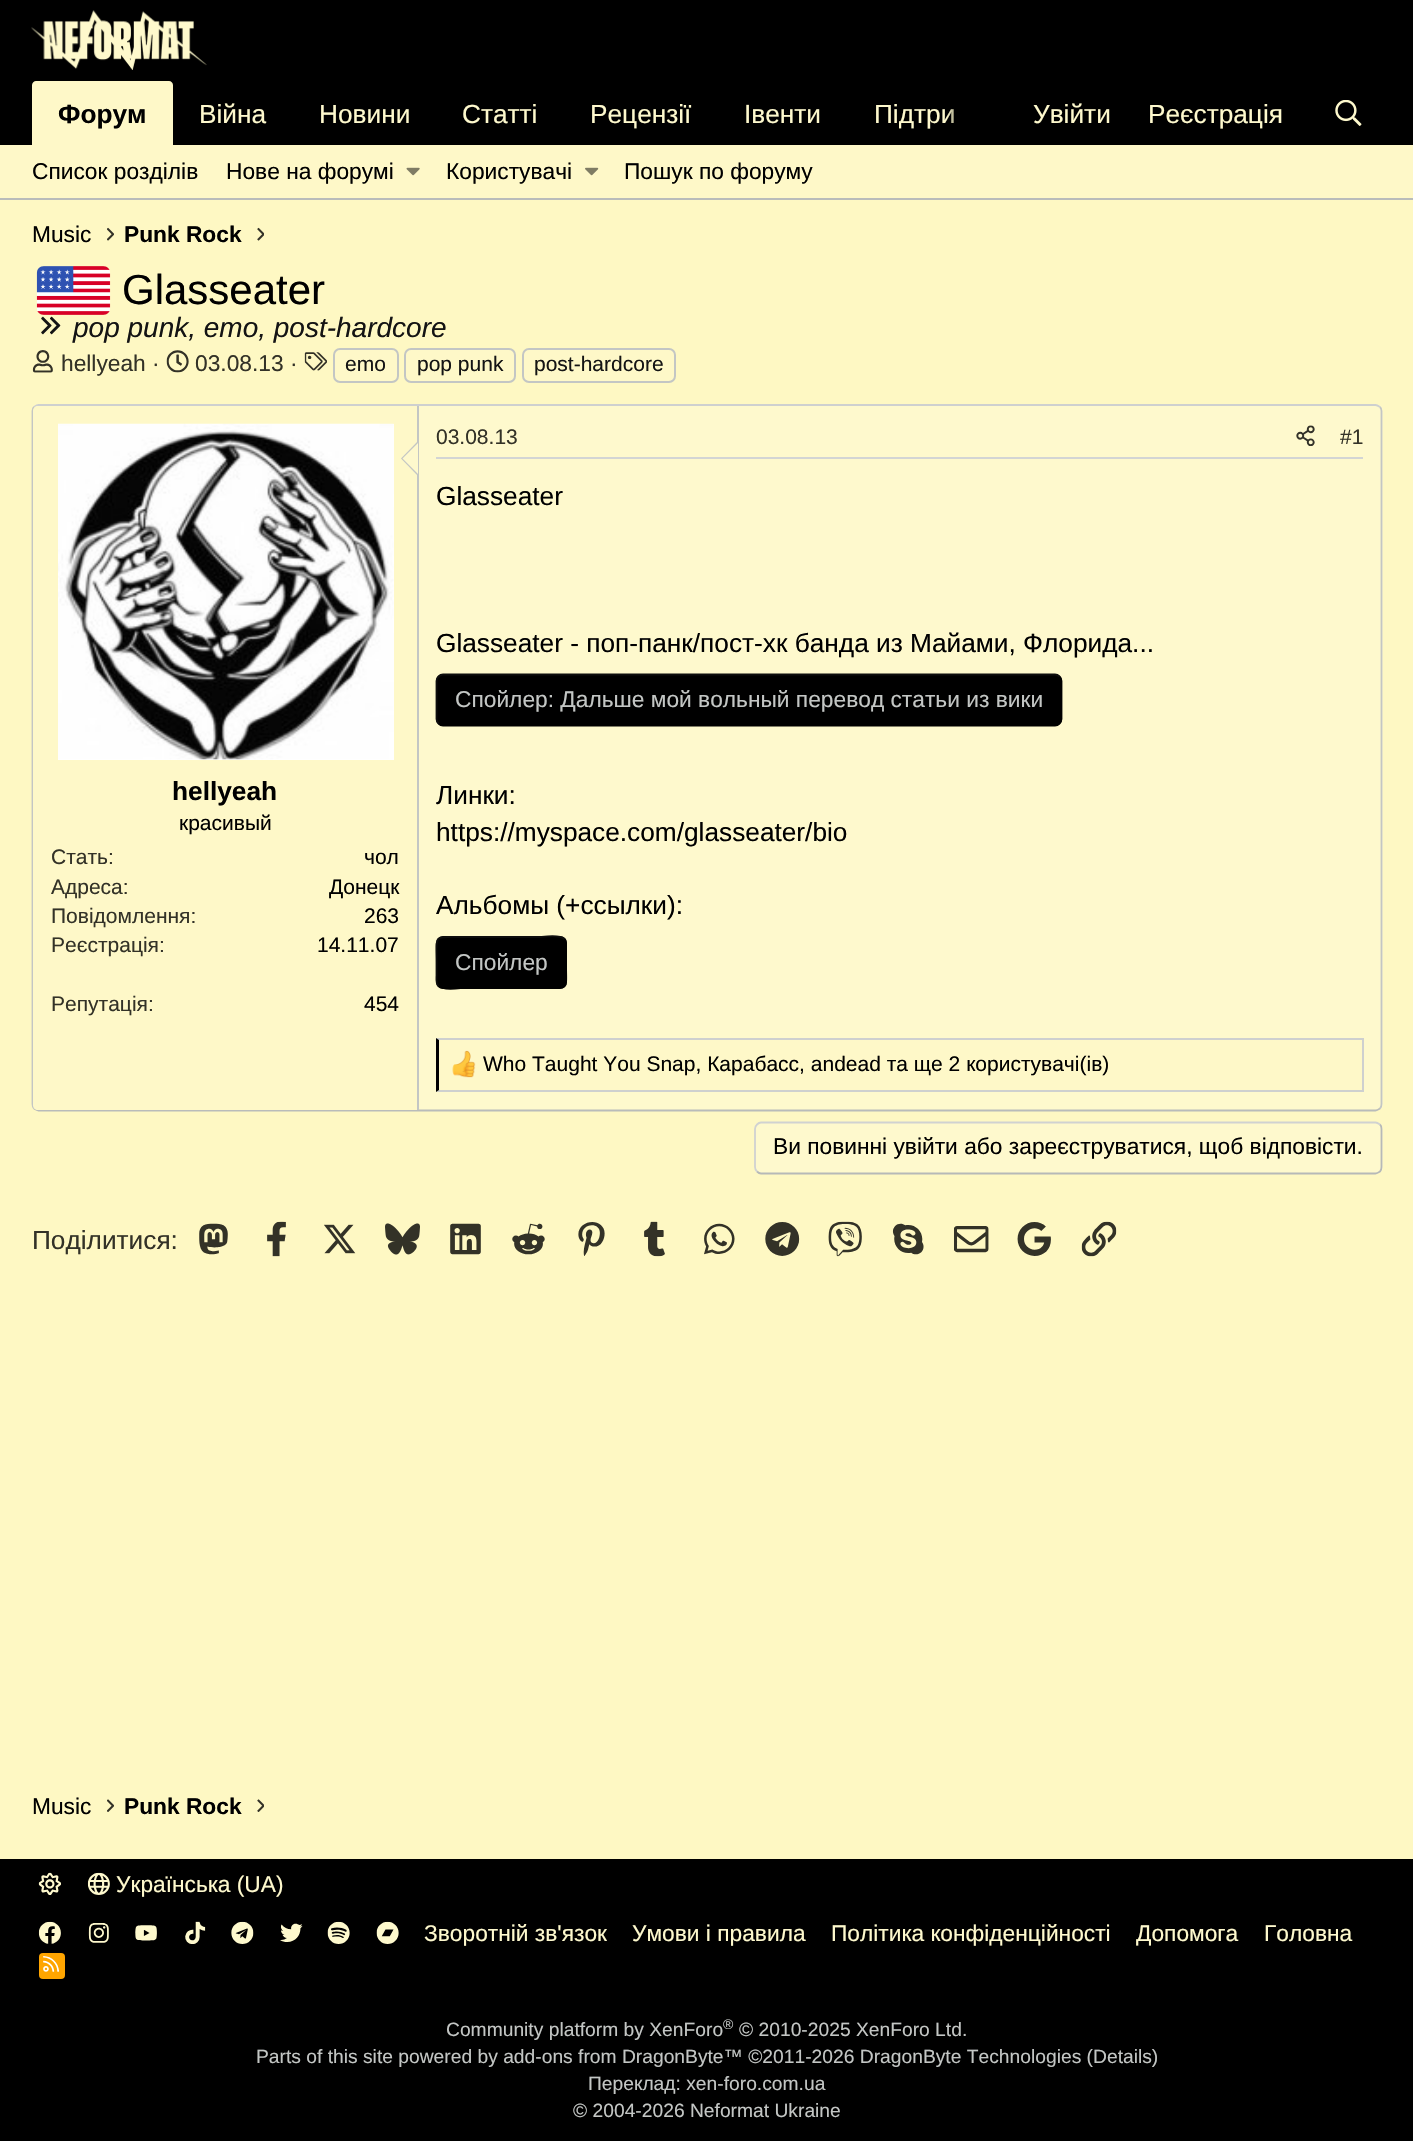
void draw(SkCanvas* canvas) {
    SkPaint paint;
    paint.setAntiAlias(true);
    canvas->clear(0xFFFEF8C3);
    paint.setColor(0xFF000000);
    canvas->drawRect(SkRect::MakeXYWH(0, 0, 1413, 145), paint);
    canvas->drawImageRect(SkImages::DeferredFromEncodedData(SkData::MakeFromFileName("img1.png")), SkRect::MakeXYWH(31, 10, 176, 60), SkSamplingOptions());
    paint.setColor(0xFFFEF8C8);
    canvas->drawPath(SkPathBuilder().moveTo(36, 81).lineTo(169, 81).cubicTo(171, 81, 173, 83, 173, 85).lineTo(173, 145).lineTo(32, 145).lineTo(32, 85).cubicTo(32, 83, 34, 81, 36, 81).close().detach(), paint);
    SkFont font1(fontMgr->matchFamilyStyle("Liberation Sans", SkFontStyle::Bold()), 26.25f);
    font1.setSubpixel(true);
    paint.setColor(0xFF000000);
    canvas->drawString("Форум", 58, 123, font1, paint);
    SkFont font2(fontMgr->matchFamilyStyle("Liberation Sans", SkFontStyle::Normal()), 26.25f);
    font2.setSubpixel(true);
    paint.setColor(0xFFFEF9CD);
    canvas->drawString("Війна", 199, 123, font2, paint);
    canvas->drawString("Новини", 319, 123, font2, paint);
    canvas->drawString("Статті", 462, 123, font2, paint);
    canvas->drawString("Рецензії", 590, 123, font2, paint);
    canvas->drawString("Івенти", 744, 123, font2, paint);
    canvas->drawString("Підтри", 874, 123, font2, paint);
    {
        const SkColor colors[] = {0x00000000, 0xFF000000};
        const float stops[] = {0, 0.33f};
        const SkPoint ends[] = {{947, 113}, {1017, 113}};
        paint.setShader(SkGradientShader::MakeLinear(ends, colors, stops, 2, SkTileMode::kClamp));
        paint.setAlpha(255);
    }
    canvas->drawRect(SkRect::MakeXYWH(947, 109, 7, 14), paint);
    paint.setShader(nullptr);
    paint.setColor(0xFFFEF9CD);
    canvas->drawString("Увійти", 1033, 123, font2, paint);
    canvas->drawString("Реєстрація", 1148, 123, font2, paint);
    canvas->drawImageRect(SkImages::DeferredFromEncodedData(SkData::MakeFromFileName("img2.png")), SkRect::MakeXYWH(1335, 100, 27, 26), SkSamplingOptions());
    paint.setColor(0xFFFEF8C8);
    canvas->drawRect(SkRect::MakeXYWH(0, 145, 1413, 53), paint);
    paint.setColor(0xFFB9BCBA);
    canvas->drawRect(SkRect::MakeXYWH(0, 198, 1413, 2), paint);
    SkFont font3(fontMgr->matchFamilyStyle("Liberation Sans", SkFontStyle::Normal()), 22.75f);
    font3.setSubpixel(true);
    paint.setColor(0xFF000000);
    canvas->drawString("Список розділів", 32, 179, font3, paint);
    canvas->drawString("Нове на форумі", 226, 179, font3, paint);
    canvas->drawImageRect(SkImages::DeferredFromEncodedData(SkData::MakeFromFileName("img3.png")), SkRect::MakeXYWH(406, 167, 14, 9), SkSamplingOptions());
    canvas->drawString("Користувачі", 446, 179, font3, paint);
    canvas->drawImageRect(SkImages::DeferredFromEncodedData(SkData::MakeFromFileName("img4.png")), SkRect::MakeXYWH(585, 167, 14, 9), SkSamplingOptions());
    canvas->drawString("Пошук по форуму", 624, 179, font3, paint);
    canvas->drawString("Music", 32, 242, font3, paint);
    canvas->drawImageRect(SkImages::DeferredFromEncodedData(SkData::MakeFromFileName("img5.png")), SkRect::MakeXYWH(107, 227, 7, 14), SkSamplingOptions());
    SkFont font4(fontMgr->matchFamilyStyle("Liberation Sans", SkFontStyle::Bold()), 22.75f);
    font4.setSubpixel(true);
    canvas->drawString("Punk Rock", 124, 242, font4, paint);
    canvas->drawImageRect(SkImages::DeferredFromEncodedData(SkData::MakeFromFileName("img6.png")), SkRect::MakeXYWH(257, 227, 7, 14), SkSamplingOptions());
    canvas->drawImageRect(SkImages::DeferredFromEncodedData(SkData::MakeFromFileName("img7.png")), SkRect::MakeXYWH(36, 266, 75, 49), SkSamplingOptions());
    SkFont font5(fontMgr->matchFamilyStyle("Liberation Sans", SkFontStyle::Normal()), 42);
    font5.setSubpixel(true);
    canvas->drawString("Glasseater", 122, 304, font5, paint);
    canvas->drawImageRect(SkImages::DeferredFromEncodedData(SkData::MakeFromFileName("img8.png")), SkRect::MakeXYWH(41, 316, 20, 19), SkSamplingOptions());
    SkFont font6(fontMgr->matchFamilyStyle("Liberation Sans", SkFontStyle::Italic()), 28);
    font6.setSubpixel(true);
    paint.setColor(0xFF141414);
    canvas->drawString("pop punk, emo, post-hardcore", 73, 337, font6, paint);
    canvas->drawImageRect(SkImages::DeferredFromEncodedData(SkData::MakeFromFileName("img9.png")), SkRect::MakeXYWH(32, 350, 21, 23), SkSamplingOptions());
    paint.setColor(0xFF333227);
    canvas->drawString("hellyeah ·", 61, 371, font3, paint);
    canvas->drawImageRect(SkImages::DeferredFromEncodedData(SkData::MakeFromFileName("img10.png")), SkRect::MakeXYWH(166, 350, 23, 23), SkSamplingOptions());
    canvas->drawString("03.08.13 ·", 195, 371, font3, paint);
    canvas->drawImageRect(SkImages::DeferredFromEncodedData(SkData::MakeFromFileName("img11.png")), SkRect::MakeXYWH(304, 352, 23, 19), SkSamplingOptions());
    paint.setColor(0xFFFEF8C8);
    canvas->drawRoundRect(SkRect::MakeXYWH(334, 349, 64, 33), 6, 6, paint);
    paint.setStyle(SkPaint::kStroke_Style);
    paint.setStrokeWidth(2);
    paint.setColor(0xFFC3C6C4);
    canvas->drawRoundRect(SkRect::MakeXYWH(334, 349, 64, 33), 6, 6, paint);
    SkFont font7(fontMgr->matchFamilyStyle("Liberation Sans", SkFontStyle::Normal()), 21);
    font7.setSubpixel(true);
    paint.setStyle(SkPaint::kFill_Style);
    paint.setColor(0xFF141414);
    canvas->drawString("emo", 345, 371, font7, paint);
    paint.setColor(0xFFFEF8C8);
    canvas->drawRoundRect(SkRect::MakeXYWH(405, 349, 110, 33), 6, 6, paint);
    paint.setStyle(SkPaint::kStroke_Style);
    paint.setColor(0xFFC3C6C4);
    canvas->drawRoundRect(SkRect::MakeXYWH(405, 349, 110, 33), 6, 6, paint);
    paint.setStyle(SkPaint::kFill_Style);
    paint.setColor(0xFF141414);
    canvas->drawString("pop punk", 417, 371, font7, paint);
    paint.setColor(0xFFFEF8C8);
    canvas->drawRoundRect(SkRect::MakeXYWH(523, 349, 152, 33), 6, 6, paint);
    paint.setStyle(SkPaint::kStroke_Style);
    paint.setColor(0xFFC3C6C4);
    canvas->drawRoundRect(SkRect::MakeXYWH(523, 349, 152, 33), 6, 6, paint);
    paint.setStyle(SkPaint::kFill_Style);
    paint.setColor(0xFF141414);
    canvas->drawString("post-hardcore", 534, 371, font7, paint);
    paint.setColor(0xFFFEF9CD);
    canvas->drawRoundRect(SkRect::MakeXYWH(32, 404, 1351, 707), 7, 7, paint);
    paint.setStyle(SkPaint::kStroke_Style);
    paint.setStrokeWidth(1.8f);
    paint.setColor(0xFFCED0CF);
    canvas->drawPath(SkPathBuilder().moveTo(34, 407).cubicTo(35.5f, 406, 37, 405, 38.5f, 405).lineTo(1375.5f, 405).cubicTo(1377, 405, 1378.5f, 406, 1380, 407).detach(), paint);
    paint.setColor(0xFFC3C6C4);
    canvas->drawPath(SkPathBuilder().moveTo(1380, 407).cubicTo(1381, 408, 1381.5f, 409.5f, 1381.5f, 411).lineTo(1381.5f, 1104).cubicTo(1381.5f, 1106, 1381, 1107.5f, 1380, 1108.5f).detach(), paint);
    paint.setColor(0xFFB9BCBA);
    canvas->drawPath(SkPathBuilder().moveTo(1380, 1108.5f).cubicTo(1378.5f, 1109.5f, 1377, 1110.5f, 1375.5f, 1110.5f).lineTo(38.5f, 1110.5f).cubicTo(37, 1110.5f, 35.5f, 1109.5f, 34, 1108.5f).detach(), paint);
    paint.setColor(0xFFC3C6C4);
    canvas->drawPath(SkPathBuilder().moveTo(34, 1108.5f).cubicTo(33, 1107.5f, 32.5f, 1106, 32.5f, 1104).lineTo(32.5f, 411).cubicTo(32.5f, 409.5f, 33, 408, 34, 407).detach(), paint);
    paint.setStyle(SkPaint::kFill_Style);
    paint.setColor(0xFFFEF8C8);
    canvas->drawPath(SkPathBuilder().moveTo(38, 406).lineTo(418, 406).lineTo(418, 1110).lineTo(38, 1110).cubicTo(35, 1110, 33, 1108, 33, 1105).lineTo(33, 411).cubicTo(33, 408, 35, 406, 38, 406).close().detach(), paint);
    paint.setColor(0xFFC3C6C4);
    canvas->drawRect(SkRect::MakeXYWH(417, 406, 2, 704), paint);
    paint.setColor(0xFFFFFFFF);
    canvas->drawRect(SkRect::MakeXYWH(58, 424, 336, 336), paint);
    canvas->drawImageRect(SkImages::DeferredFromEncodedData(SkData::MakeFromFileName("img12.png")), SkRect::MakeXYWH(58, 423, 336, 337), SkSamplingOptions());
    paint.setColor(0xFFC3C6C4);
    canvas->drawPath(SkPathBuilder().moveTo(418, 441).lineTo(418, 476).lineTo(401, 458.5f).close().detach(), paint);
    paint.setColor(0xFFFEF9CD);
    canvas->drawPath(SkPathBuilder().moveTo(418, 443).lineTo(418, 474).lineTo(402.5f, 458.5f).close().detach(), paint);
    paint.setColor(0xFF000000);
    canvas->drawString("hellyeah", 172, 800, font1, paint);
    canvas->drawString("красивый", 179, 830, font7, paint);
    paint.setColor(0xFF333227);
    canvas->drawString("Стать:", 51, 864, font7, paint);
    paint.setColor(0xFF000000);
    canvas->drawString("чол", 364, 864, font7, paint);
    paint.setColor(0xFF333227);
    canvas->drawString("Адреса:", 51, 894, font7, paint);
    paint.setColor(0xFF000000);
    canvas->drawString("Донецк", 329, 894, font7, paint);
    paint.setColor(0xFF333227);
    canvas->drawString("Повідомлення:", 51, 923, font7, paint);
    paint.setColor(0xFF000000);
    canvas->drawString("263", 364, 923, font7, paint);
    paint.setColor(0xFF333227);
    canvas->drawString("Реєстрація:", 51, 952, font7, paint);
    paint.setColor(0xFF000000);
    canvas->drawString("14.11.07", 317, 952, font7, paint);
    paint.setColor(0xFF333227);
    canvas->drawString("Репутація:", 51, 1011, font7, paint);
    paint.setColor(0xFF000000);
    canvas->drawString("454", 364, 1011, font7, paint);
    paint.setColor(0xFFD3D5D4);
    canvas->drawRect(SkRect::MakeXYWH(436, 457, 927, 2), paint);
    paint.setColor(0xFF333227);
    canvas->drawString("03.08.13", 436, 444, font7, paint);
    canvas->drawImageRect(SkImages::DeferredFromEncodedData(SkData::MakeFromFileName("img13.png")), SkRect::MakeXYWH(1296, 425, 19, 21), SkSamplingOptions());
    canvas->drawString("#1", 1340, 444, font7, paint);
    paint.setColor(0xFF000000);
    canvas->drawString("Glasseater", 436, 505, font2, paint);
    canvas->drawString("Glasseater - поп-панк/пост-хк банда из Майами, Флорида...", 436, 652, font2, paint);
    canvas->drawRoundRect(SkRect::MakeXYWH(436, 674, 626, 52), 7, 7, paint);
    paint.setStyle(SkPaint::kStroke_Style);
    canvas->drawPath(SkPathBuilder().moveTo(1059.5f, 676.5f).cubicTo(1060.5f, 677.5f, 1061.5f, 679, 1061.5f, 681).lineTo(1061.5f, 719).cubicTo(1061.5f, 721, 1060.5f, 722.5f, 1059.5f, 723.5f).cubicTo(1058.5f, 724.5f, 1057, 725.5f, 1055, 725.5f).lineTo(443, 725.5f).cubicTo(441, 725.5f, 439.5f, 724.5f, 438.5f, 723.5f).detach(), paint);
    paint.setColor(0xFF0D0D0D);
    canvas->drawPath(SkPathBuilder().moveTo(438.5f, 723.5f).cubicTo(437.5f, 722.5f, 436.5f, 721, 436.5f, 719).lineTo(436.5f, 681).cubicTo(436.5f, 679, 437.5f, 677.5f, 438.5f, 676.5f).cubicTo(439.5f, 675.5f, 441, 674.5f, 443, 674.5f).lineTo(1055, 674.5f).cubicTo(1057, 674.5f, 1058.5f, 675.5f, 1059.5f, 676.5f).detach(), paint);
    paint.setStyle(SkPaint::kFill_Style);
    paint.setColor(0xFFC3C6C4);
    canvas->drawString("Спойлер: Дальше мой вольный перевод статьи из вики", 455, 707, font3, paint);
    paint.setColor(0xFF000000);
    canvas->drawString("Линки:", 436, 804, font2, paint);
    canvas->drawString("https://myspace.com/glasseater/bio", 436, 841, font2, paint);
    canvas->drawString("Альбомы (+ссылки):", 436, 914, font2, paint);
    canvas->drawRoundRect(SkRect::MakeXYWH(436, 936, 131, 53), 7, 7, paint);
    paint.setStyle(SkPaint::kStroke_Style);
    canvas->drawPath(SkPathBuilder().moveTo(564.5f, 939).cubicTo(567, 941.5f, 566, 946.5f, 566, 949.5f).lineTo(566, 962.5f).cubicTo(566, 991.5f, 570.5f, 988, 540.5f, 988).lineTo(462.5f, 988).cubicTo(461, 988, 443, 991, 438.5f, 986).detach(), paint);
    paint.setColor(0xFF0D0D0D);
    canvas->drawPath(SkPathBuilder().moveTo(438.5f, 986).cubicTo(435.5f, 983.5f, 436.5f, 978.5f, 436.5f, 975.5f).lineTo(436.5f, 962.5f).cubicTo(436.5f, 933.5f, 432.5f, 937, 462.5f, 937).lineTo(540.5f, 937).cubicTo(541.5f, 937, 559.5f, 934, 564.5f, 939).detach(), paint);
    paint.setStyle(SkPaint::kFill_Style);
    paint.setColor(0xFFC3C6C4);
    canvas->drawString("Спойлер", 455, 970, font3, paint);
    paint.setColor(0xFFFEF8C8);
    canvas->drawRect(SkRect::MakeXYWH(439, 1040, 923, 50), paint);
    paint.setColor(0xFFCED0CF);
    canvas->drawPath(SkPathBuilder().moveTo(436, 1038).lineTo(1363, 1038).lineTo(1362, 1040).lineTo(439, 1040).close().detach(), paint);
    canvas->drawRect(SkRect::MakeXYWH(1362, 1038, 2, 54), paint);
    canvas->drawPath(SkPathBuilder().moveTo(1363, 1092).lineTo(436, 1092).lineTo(439, 1090).lineTo(1362, 1090).close().detach(), paint);
    paint.setColor(0xFF000000);
    canvas->drawPath(SkPathBuilder().moveTo(436, 1092).lineTo(436, 1038).lineTo(439, 1040).lineTo(439, 1090).close().detach(), paint);
    canvas->drawImageRect(SkImages::DeferredFromEncodedData(SkData::MakeFromFileName("img14.png")), SkRect::MakeXYWH(452, 1050, 24, 28), SkSamplingOptions());
    canvas->drawString("Who Taught You Snap, Карабасс, andead та ще 2 користувачі(ів)", 483, 1071, font7, paint);
    paint.setColor(0xFFFEF9CD);
    canvas->drawRoundRect(SkRect::MakeXYWH(754, 1122, 629, 52), 7, 7, paint);
    paint.setStyle(SkPaint::kStroke_Style);
    paint.setColor(0xFFB6B9B8);
    canvas->drawPath(SkPathBuilder().moveTo(1380, 1124.5f).cubicTo(1381, 1125.5f, 1381.5f, 1127, 1381.5f, 1129).lineTo(1381.5f, 1167).cubicTo(1381.5f, 1169, 1381, 1170.5f, 1380, 1171.5f).cubicTo(1378.5f, 1172.5f, 1377, 1173.5f, 1375.5f, 1173.5f).lineTo(761, 1173.5f).cubicTo(759.5f, 1173.5f, 758, 1172.5f, 757, 1171.5f).detach(), paint);
    paint.setColor(0xFFD0D2D1);
    canvas->drawPath(SkPathBuilder().moveTo(757, 1171.5f).cubicTo(756, 1170.5f, 755, 1169, 755, 1167).lineTo(755, 1129).cubicTo(755, 1127, 756, 1125.5f, 757, 1124.5f).cubicTo(758, 1123.5f, 759.5f, 1122.5f, 761, 1122.5f).lineTo(1375.5f, 1122.5f).cubicTo(1377, 1122.5f, 1378.5f, 1123.5f, 1380, 1124.5f).detach(), paint);
    paint.setStyle(SkPaint::kFill_Style);
    paint.setColor(0xFF000000);
    canvas->drawString("Ви повинні увійти або зареєструватися, щоб відповісти.", 773, 1154, font3, paint);
    paint.setColor(0xFF333227);
    canvas->drawString("Поділитися:", 32, 1249, font2, paint);
    canvas->drawImageRect(SkImages::DeferredFromEncodedData(SkData::MakeFromFileName("img15.png")), SkRect::MakeXYWH(199, 1223, 29, 32), SkSamplingOptions());
    canvas->drawImageRect(SkImages::DeferredFromEncodedData(SkData::MakeFromFileName("img16.png")), SkRect::MakeXYWH(267, 1221, 19, 36), SkSamplingOptions());
    canvas->drawImageRect(SkImages::DeferredFromEncodedData(SkData::MakeFromFileName("img17.png")), SkRect::MakeXYWH(324, 1224, 32, 30), SkSamplingOptions());
    canvas->drawImageRect(SkImages::DeferredFromEncodedData(SkData::MakeFromFileName("img18.png")), SkRect::MakeXYWH(385, 1223, 35, 32), SkSamplingOptions());
    canvas->drawImageRect(SkImages::DeferredFromEncodedData(SkData::MakeFromFileName("img19.png")), SkRect::MakeXYWH(450, 1223, 31, 32), SkSamplingOptions());
    canvas->drawImageRect(SkImages::DeferredFromEncodedData(SkData::MakeFromFileName("img20.png")), SkRect::MakeXYWH(512, 1223, 33, 32), SkSamplingOptions());
    canvas->drawImageRect(SkImages::DeferredFromEncodedData(SkData::MakeFromFileName("img21.png")), SkRect::MakeXYWH(578, 1222, 27, 34), SkSamplingOptions());
    canvas->drawImageRect(SkImages::DeferredFromEncodedData(SkData::MakeFromFileName("img22.png")), SkRect::MakeXYWH(644, 1221, 21, 36), SkSamplingOptions());
    canvas->drawImageRect(SkImages::DeferredFromEncodedData(SkData::MakeFromFileName("img23.png")), SkRect::MakeXYWH(704, 1223, 31, 32), SkSamplingOptions());
    canvas->drawImageRect(SkImages::DeferredFromEncodedData(SkData::MakeFromFileName("img24.png")), SkRect::MakeXYWH(765, 1222, 35, 34), SkSamplingOptions());
    canvas->drawImageRect(SkImages::DeferredFromEncodedData(SkData::MakeFromFileName("img25.png")), SkRect::MakeXYWH(828, 1221, 34, 36), SkSamplingOptions());
    canvas->drawImageRect(SkImages::DeferredFromEncodedData(SkData::MakeFromFileName("img26.png")), SkRect::MakeXYWH(892, 1223, 32, 32), SkSamplingOptions());
    canvas->drawImageRect(SkImages::DeferredFromEncodedData(SkData::MakeFromFileName("img27.png")), SkRect::MakeXYWH(954, 1226, 35, 27), SkSamplingOptions());
    canvas->drawImageRect(SkImages::DeferredFromEncodedData(SkData::MakeFromFileName("img28.png")), SkRect::MakeXYWH(1017, 1222, 34, 34), SkSamplingOptions());
    canvas->drawImageRect(SkImages::DeferredFromEncodedData(SkData::MakeFromFileName("img29.png")), SkRect::MakeXYWH(1081, 1221, 36, 36), SkSamplingOptions());
    paint.setColor(0xFF000000);
    canvas->drawString("Music", 32, 1814, font3, paint);
    canvas->drawImageRect(SkImages::DeferredFromEncodedData(SkData::MakeFromFileName("img30.png")), SkRect::MakeXYWH(107, 1799, 7, 13), SkSamplingOptions());
    canvas->drawString("Punk Rock", 124, 1814, font4, paint);
    canvas->drawImageRect(SkImages::DeferredFromEncodedData(SkData::MakeFromFileName("img31.png")), SkRect::MakeXYWH(257, 1799, 7, 13), SkSamplingOptions());
    canvas->drawRect(SkRect::MakeXYWH(0, 1859, 1413, 282), paint);
    canvas->drawImageRect(SkImages::DeferredFromEncodedData(SkData::MakeFromFileName("img32.png")), SkRect::MakeXYWH(38, 1872, 23, 23), SkSamplingOptions());
    canvas->drawImageRect(SkImages::DeferredFromEncodedData(SkData::MakeFromFileName("img33.png")), SkRect::MakeXYWH(87, 1872, 23, 23), SkSamplingOptions());
    paint.setColor(0xFFFEF9CD);
    canvas->drawString("Українська (UA)", 116, 1892, font3, paint);
    canvas->drawImageRect(SkImages::DeferredFromEncodedData(SkData::MakeFromFileName("img34.png")), SkRect::MakeXYWH(38, 1921, 23, 23), SkSamplingOptions());
    canvas->drawImageRect(SkImages::DeferredFromEncodedData(SkData::MakeFromFileName("img35.png")), SkRect::MakeXYWH(88, 1923, 21, 20), SkSamplingOptions());
    canvas->drawImageRect(SkImages::DeferredFromEncodedData(SkData::MakeFromFileName("img36.png")), SkRect::MakeXYWH(135, 1925, 22, 16), SkSamplingOptions());
    canvas->drawImageRect(SkImages::DeferredFromEncodedData(SkData::MakeFromFileName("img37.png")), SkRect::MakeXYWH(185, 1921, 21, 23), SkSamplingOptions());
    canvas->drawImageRect(SkImages::DeferredFromEncodedData(SkData::MakeFromFileName("img38.png")), SkRect::MakeXYWH(231, 1921, 23, 23), SkSamplingOptions());
    canvas->drawImageRect(SkImages::DeferredFromEncodedData(SkData::MakeFromFileName("img39.png")), SkRect::MakeXYWH(280, 1923, 23, 19), SkSamplingOptions());
    canvas->drawImageRect(SkImages::DeferredFromEncodedData(SkData::MakeFromFileName("img40.png")), SkRect::MakeXYWH(327, 1921, 23, 23), SkSamplingOptions());
    canvas->drawImageRect(SkImages::DeferredFromEncodedData(SkData::MakeFromFileName("img41.png")), SkRect::MakeXYWH(376, 1921, 23, 23), SkSamplingOptions());
    canvas->drawString("Зворотній зв'язок", 424, 1941, font3, paint);
    canvas->drawString("Умови і правила", 632, 1941, font3, paint);
    canvas->drawString("Політика конфіденційності", 831, 1941, font3, paint);
    canvas->drawString("Дoпoмoга", 1136, 1941, font3, paint);
    canvas->drawString("Головна", 1264, 1941, font3, paint);
    paint.setColor(0xFFFFA500);
    canvas->drawRoundRect(SkRect::MakeXYWH(39, 1953, 26, 26), 4, 4, paint);
    canvas->drawImageRect(SkImages::DeferredFromEncodedData(SkData::MakeFromFileName("img42.png")), SkRect::MakeXYWH(43, 1956, 16, 16), SkSamplingOptions());
    SkFont font8(fontMgr->matchFamilyStyle("Liberation Sans", SkFontStyle::Normal()), 19.25f);
    font8.setSubpixel(true);
    paint.setColor(0xFFC3C6C4);
    canvas->drawString("Community platform by XenForo", 446, 2036, font8, paint);
    SkFont font9(fontMgr->matchFamilyStyle("Liberation Sans", SkFontStyle::Normal()), 14);
    font9.setSubpixel(true);
    canvas->drawString("®", 723, 2029, font9, paint);
    canvas->drawString("© 2010-2025 XenForo Ltd.", 739, 2036, font8, paint);
    canvas->drawString("Parts of this site powered by add-ons from DragonByte™ ©2011-2026 DragonByte Technologies (Details)", 256, 2063, font8, paint);
    canvas->drawString("Переклад: xen-foro.com.ua", 588, 2090, font8, paint);
    canvas->drawString("© 2004-2026 Neformat Ukraine", 573, 2117, font8, paint);
}
